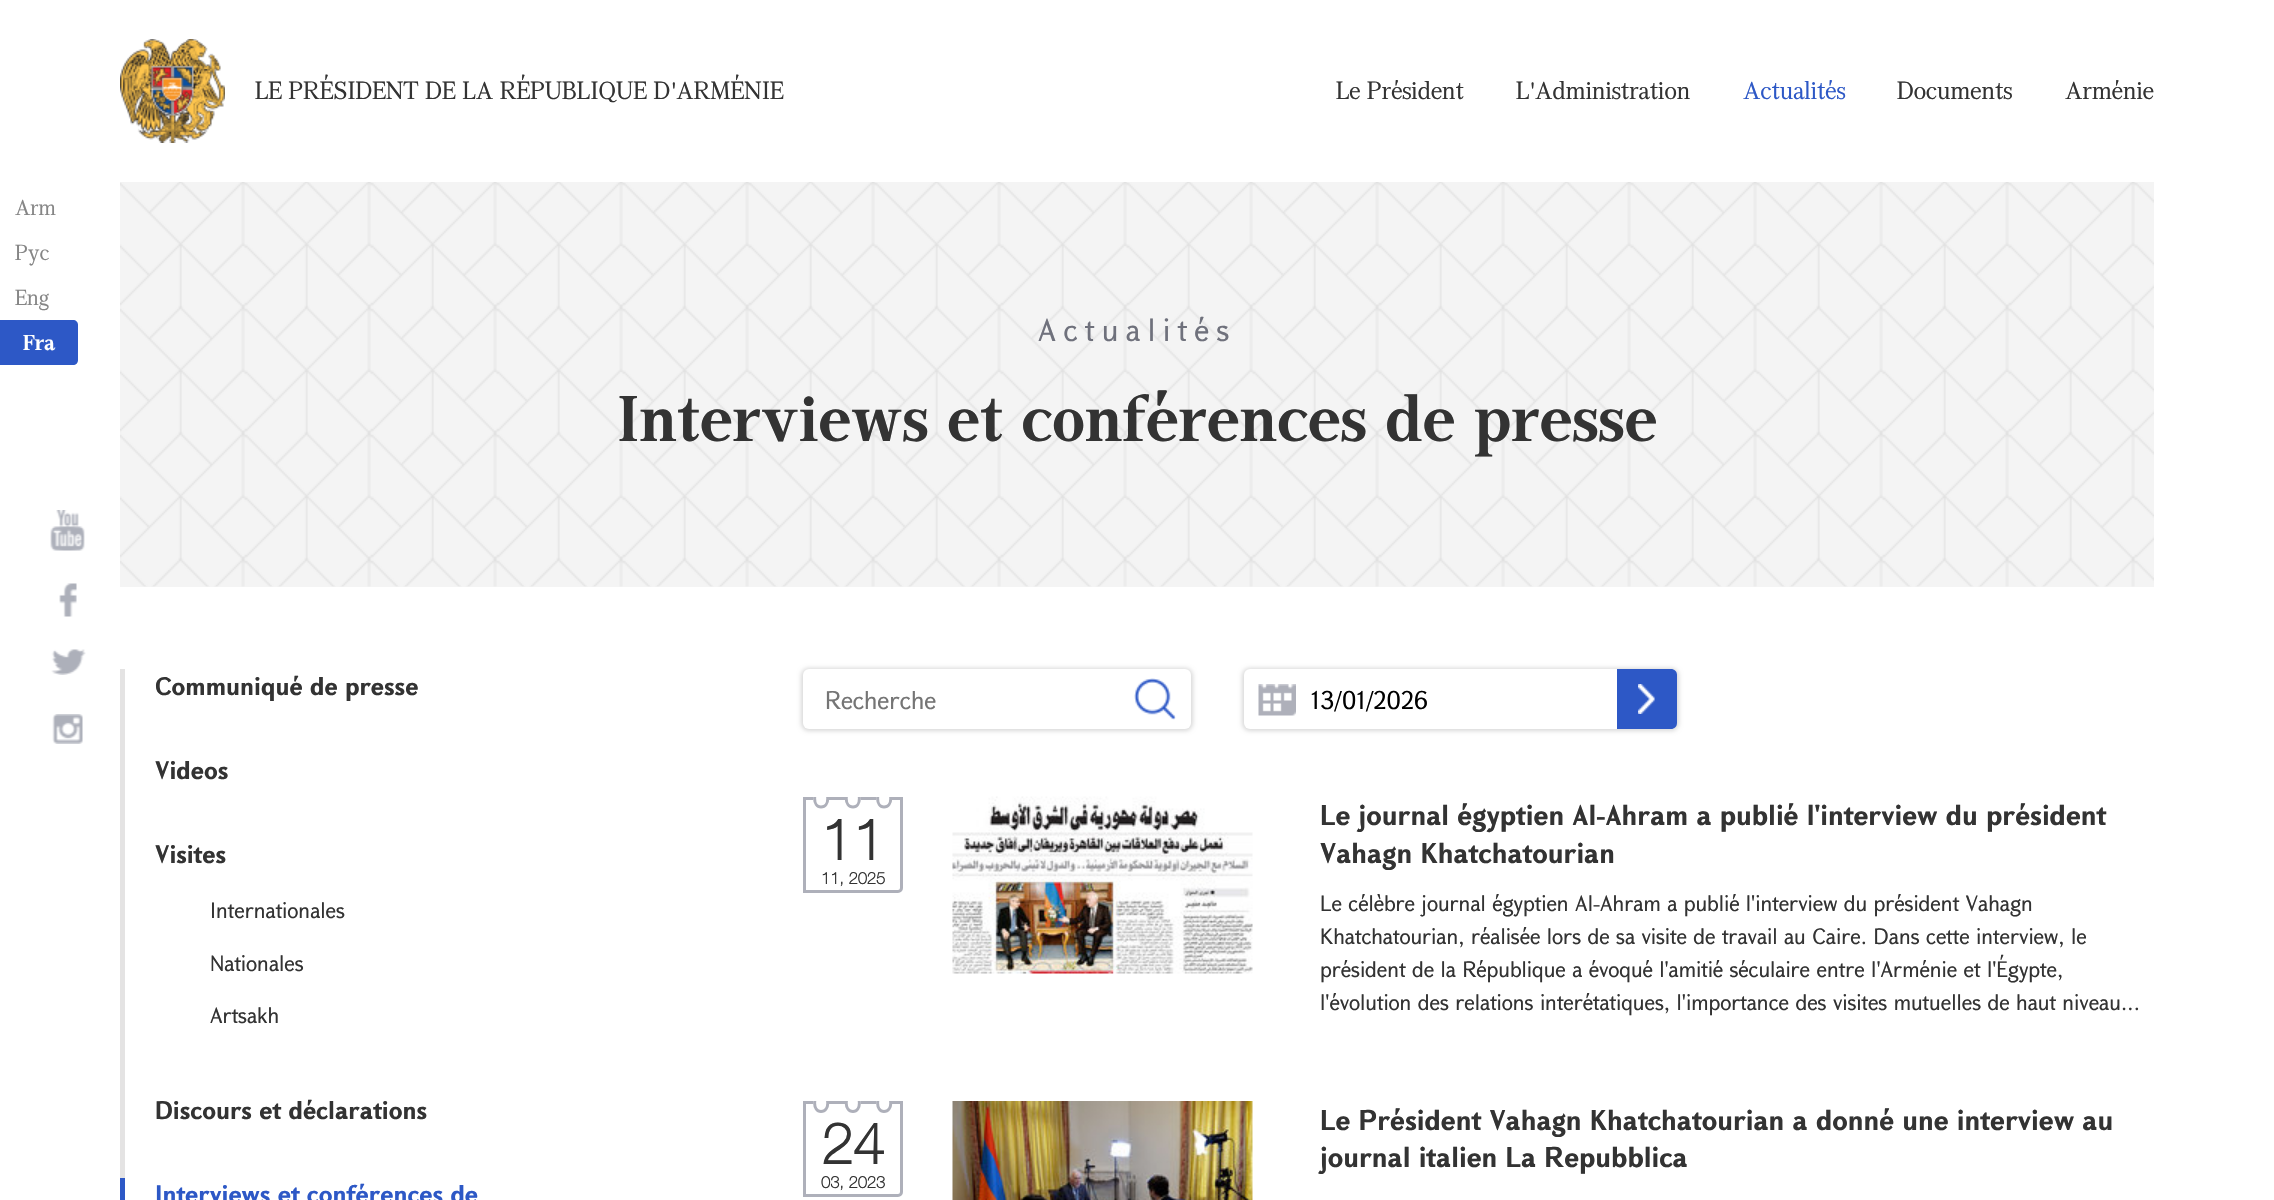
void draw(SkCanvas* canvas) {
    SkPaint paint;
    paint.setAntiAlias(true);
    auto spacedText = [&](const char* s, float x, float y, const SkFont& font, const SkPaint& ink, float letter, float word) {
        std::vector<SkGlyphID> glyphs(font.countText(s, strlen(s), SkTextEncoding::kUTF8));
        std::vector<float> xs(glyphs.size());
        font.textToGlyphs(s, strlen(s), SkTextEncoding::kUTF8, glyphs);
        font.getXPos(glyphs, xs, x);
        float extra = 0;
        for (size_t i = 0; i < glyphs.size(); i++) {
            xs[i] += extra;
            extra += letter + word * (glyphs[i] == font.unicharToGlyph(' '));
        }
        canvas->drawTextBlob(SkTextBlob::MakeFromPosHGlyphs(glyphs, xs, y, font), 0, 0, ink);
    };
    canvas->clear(0xFFFFFFFF);
    canvas->drawImageRect(SkImages::DeferredFromEncodedData(SkData::MakeFromFileName("img1.png")), SkRect::MakeXYWH(120, 39, 105, 104), SkSamplingOptions());
    SkFont font1(fontMgr->matchFamilyStyle("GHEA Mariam", SkFontStyle::Normal()), 24);
    font1.setSubpixel(true);
    paint.setColor(0xFF333333);
    canvas->drawString("LE PRÉSIDENT DE LA RÉPUBLIQUE D'ARMÉNIE", 255, 99, font1, paint);
    canvas->drawString("Le Président", 1336, 99, font1, paint);
    canvas->drawString("L'Administration", 1516, 99, font1, paint);
    paint.setColor(0xFF2D58C6);
    canvas->drawString("Actualités", 1743, 99, font1, paint);
    paint.setColor(0xFF333333);
    canvas->drawString("Documents", 1897, 99, font1, paint);
    canvas->drawString("Arménie", 2065, 99, font1, paint);
    SkFont font2(fontMgr->matchFamilyStyle("GHEA Mariam", SkFontStyle::Normal()), 21);
    font2.setSubpixel(true);
    paint.setColor(0xFF868686);
    canvas->drawString("Arm", 15, 215, font2, paint);
    canvas->drawString("Рус", 15, 260, font2, paint);
    canvas->drawString("Eng", 15, 305, font2, paint);
    paint.setColor(0xFF2D58C6);
    canvas->drawPath(SkPathBuilder().moveTo(0, 320).lineTo(73, 320).cubicTo(76, 320, 78, 322, 78, 325).lineTo(78, 360).cubicTo(78, 363, 76, 365, 73, 365).lineTo(0, 365).close().detach(), paint);
    SkFont font3(fontMgr->matchFamilyStyle("GHEA Mariam", SkFontStyle::Bold()), 21);
    font3.setSubpixel(true);
    paint.setColor(0xFFFFFFFF);
    canvas->drawString("Fra", 23, 350, font3, paint);
    canvas->drawImageRect(SkImages::DeferredFromEncodedData(SkData::MakeFromFileName("img2.png")), SkRect::MakeXYWH(50, 510, 35, 41), SkSamplingOptions());
    canvas->drawImageRect(SkImages::DeferredFromEncodedData(SkData::MakeFromFileName("img3.png")), SkRect::MakeXYWH(59, 583, 18, 34), SkSamplingOptions());
    canvas->drawImageRect(SkImages::DeferredFromEncodedData(SkData::MakeFromFileName("img4.png")), SkRect::MakeXYWH(51, 649, 35, 26), SkSamplingOptions());
    canvas->drawImageRect(SkImages::DeferredFromEncodedData(SkData::MakeFromFileName("img5.png")), SkRect::MakeXYWH(52, 714, 31, 30), SkSamplingOptions());
    paint.setColor(0xFFF5F5F5);
    canvas->drawRect(SkRect::MakeXYWH(120, 182, 2034, 405), paint);
    canvas->drawImageRect(SkImages::DeferredFromEncodedData(SkData::MakeFromFileName("img6.png")), SkRect::MakeXYWH(120, 182, 2034, 405), SkSamplingOptions());
    SkFont font4(fontMgr->matchFamilyStyle("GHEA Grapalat", SkFontStyle::Normal()), 30);
    font4.setSubpixel(true);
    paint.setColor(0xFF6F717C);
    spacedText("Actualités", 1038, 341, font4, paint, 7.5f, 0);
    SkFont font5(fontMgr->matchFamilyStyle("GHEA Mariam", SkFontStyle::Bold()), 63);
    font5.setSubpixel(true);
    paint.setColor(0xFF333333);
    canvas->drawString("Interviews et conférences de presse", 617, 441, font5, paint);
    paint.setColor(0xFFE4E3E3);
    canvas->drawRect(SkRect::MakeXYWH(120, 669, 5, 509), paint);
    SkFont font6(fontMgr->matchFamilyStyle("GHEA Grapalat", SkFontStyle::Bold()), 24);
    font6.setSubpixel(true);
    paint.setColor(0xFF333333);
    canvas->drawString("Communiqué de presse", 155, 695, font6, paint);
    canvas->drawString("Videos", 155, 779, font6, paint);
    canvas->drawString("Visites", 155, 863, font6, paint);
    SkFont font7(fontMgr->matchFamilyStyle("GHEA Grapalat", SkFontStyle::Normal()), 21);
    font7.setSubpixel(true);
    canvas->drawString("Internationales", 210, 918, font7, paint);
    canvas->drawString("Nationales", 210, 971, font7, paint);
    canvas->drawString("Artsakh", 210, 1023, font7, paint);
    canvas->drawString("Discours et déclarations", 155, 1119, font6, paint);
    paint.setColor(0xFF2D58C6);
    canvas->drawRect(SkRect::MakeXYWH(120, 1178, 5, 22), paint);
    canvas->drawString("Interviews et conférences de", 155, 1203, font6, paint);
    paint.setColor(0x26000000);
    paint.setMaskFilter(SkMaskFilter::MakeBlur(kNormal_SkBlurStyle, 2));
    canvas->drawRoundRect(SkRect::MakeXYWH(801, 668, 392, 63), 8, 8, paint);
    paint.setMaskFilter(nullptr);
    paint.setColor(0xFFFFFFFF);
    canvas->drawRoundRect(SkRect::MakeXYWH(803, 669, 388, 60), 6, 6, paint);
    SkFont font8(fontMgr->matchFamilyStyle("GHEA Grapalat", SkFontStyle::Normal()), 24);
    font8.setSubpixel(true);
    paint.setColor(0xFF757575);
    canvas->drawString("Recherche", 825, 709, font8, paint);
    canvas->drawImageRect(SkImages::DeferredFromEncodedData(SkData::MakeFromFileName("img7.png")), SkRect::MakeXYWH(1134, 678, 42, 42), SkSamplingOptions());
    paint.setColor(0x26000000);
    paint.setMaskFilter(SkMaskFilter::MakeBlur(kNormal_SkBlurStyle, 2));
    canvas->drawRoundRect(SkRect::MakeXYWH(1242, 668, 437, 63), 8, 8, paint);
    paint.setMaskFilter(nullptr);
    paint.setColor(0xFFFFFFFF);
    canvas->drawRoundRect(SkRect::MakeXYWH(1244, 669, 433, 60), 6, 6, paint);
    canvas->drawImageRect(SkImages::DeferredFromEncodedData(SkData::MakeFromFileName("img8.png")), SkRect::MakeXYWH(1258, 684, 38, 32), SkSamplingOptions());
    paint.setColor(0xFF000000);
    canvas->drawString("13/01/2026", 1311, 709, font8, paint);
    paint.setColor(0xFF2D58C6);
    canvas->drawPath(SkPathBuilder().moveTo(1617, 669).lineTo(1671, 669).cubicTo(1674.5f, 669, 1677, 671.5f, 1677, 675).lineTo(1677, 723).cubicTo(1677, 726.5f, 1674.5f, 729, 1671, 729).lineTo(1617, 729).close().detach(), paint);
    canvas->drawImageRect(SkImages::DeferredFromEncodedData(SkData::MakeFromFileName("img9.png")), SkRect::MakeXYWH(1638, 684, 17, 30), SkSamplingOptions());
    paint.setStyle(SkPaint::kStroke_Style);
    paint.setStrokeWidth(3);
    paint.setColor(0xFFAEB0BA);
    canvas->drawPath(SkPathBuilder().moveTo(804.5f, 798.5f).lineTo(901.5f, 798.5f).lineTo(901.5f, 888).cubicTo(901.5f, 890, 900, 891.5f, 898, 891.5f).lineTo(804.5f, 891.5f).close().detach(), paint);
    canvas->save();
    canvas->clipRect(SkRect::MakeXYWH(806, 797, 94, 12));
    paint.setStyle(SkPaint::kFill_Style);
    paint.setColor(0xFFFFFFFF);
    canvas->drawOval(SkRect::MakeXYWH(813, 789, 16, 20), paint);
    paint.setStyle(SkPaint::kStroke_Style);
    paint.setColor(0xFFAEB0BA);
    canvas->drawPath(SkPathBuilder().moveTo(821, 790.5f).cubicTo(830, 790.5f, 830, 807, 821, 807).cubicTo(812.5f, 807, 812.5f, 790.5f, 821, 790.5f).close().detach(), paint);
    paint.setStyle(SkPaint::kFill_Style);
    paint.setColor(0xFFFFFFFF);
    canvas->drawOval(SkRect::MakeXYWH(845, 789, 16, 20), paint);
    paint.setStyle(SkPaint::kStroke_Style);
    paint.setColor(0xFFAEB0BA);
    canvas->drawPath(SkPathBuilder().moveTo(853, 790.5f).cubicTo(861.5f, 790.5f, 861.5f, 807, 853, 807).cubicTo(844, 807, 844, 790.5f, 853, 790.5f).close().detach(), paint);
    paint.setStyle(SkPaint::kFill_Style);
    paint.setColor(0xFFFFFFFF);
    canvas->drawOval(SkRect::MakeXYWH(876, 789, 16, 20), paint);
    paint.setStyle(SkPaint::kStroke_Style);
    paint.setColor(0xFFAEB0BA);
    canvas->drawPath(SkPathBuilder().moveTo(884, 790.5f).cubicTo(893, 790.5f, 893, 807, 884, 807).cubicTo(875.5f, 807, 875.5f, 790.5f, 884, 790.5f).close().detach(), paint);
    canvas->restore();
    SkFont font9(fontMgr->matchFamilyStyle("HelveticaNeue", SkFontStyle::Bold()), 57);
    font9.setSubpixel(true);
    paint.setStyle(SkPaint::kFill_Style);
    paint.setColor(0xFF333333);
    canvas->drawString("11", 821, 860, font9, paint);
    SkFont font10(fontMgr->matchFamilyStyle("HelveticaNeue", SkFontStyle::Bold()), 16.5f);
    font10.setSubpixel(true);
    canvas->drawString("11, 2025", 821, 884, font10, paint);
    canvas->drawImageRect(SkImages::DeferredFromEncodedData(SkData::MakeFromFileName("img10.png")), SkRect::MakeXYWH(952, 796, 301, 178), SkSamplingOptions());
    SkFont font11(fontMgr->matchFamilyStyle("GHEA Grapalat", SkFontStyle::Bold()), 27);
    font11.setSubpixel(true);
    canvas->drawString("Le journal égyptien Al-Ahram a publié l'interview du président", 1320, 825, font11, paint);
    canvas->drawString("Vahagn Khatchatourian", 1320, 863, font11, paint);
    canvas->drawString("Le célèbre journal égyptien Al-Ahram a publié l'interview du président Vahagn", 1320, 911, font7, paint);
    canvas->drawString("Khatchatourian, réalisée lors de sa visite de travail au Caire. Dans cette interview, le", 1320, 944, font7, paint);
    canvas->drawString("président de la République a évoqué l'amitié séculaire entre l'Arménie et l'Égypte,", 1320, 977, font7, paint);
    canvas->drawString("l'évolution des relations interétatiques, l'importance des visites mutuelles de haut niveau...", 1320, 1010, font7, paint);
    paint.setStyle(SkPaint::kStroke_Style);
    paint.setColor(0xFFAEB0BA);
    canvas->drawPath(SkPathBuilder().moveTo(804.5f, 1102.5f).lineTo(901.5f, 1102.5f).lineTo(901.5f, 1192).cubicTo(901.5f, 1194, 900, 1195.5f, 898, 1195.5f).lineTo(804.5f, 1195.5f).close().detach(), paint);
    canvas->save();
    canvas->clipRect(SkRect::MakeXYWH(806, 1101, 94, 12));
    paint.setStyle(SkPaint::kFill_Style);
    paint.setColor(0xFFFFFFFF);
    canvas->drawOval(SkRect::MakeXYWH(813, 1093, 16, 20), paint);
    paint.setStyle(SkPaint::kStroke_Style);
    paint.setColor(0xFFAEB0BA);
    canvas->drawPath(SkPathBuilder().moveTo(821, 1095).cubicTo(830, 1095, 830, 1111.5f, 821, 1111.5f).cubicTo(812.5f, 1111.5f, 812.5f, 1095, 821, 1095).close().detach(), paint);
    paint.setStyle(SkPaint::kFill_Style);
    paint.setColor(0xFFFFFFFF);
    canvas->drawOval(SkRect::MakeXYWH(845, 1093, 16, 20), paint);
    paint.setStyle(SkPaint::kStroke_Style);
    paint.setColor(0xFFAEB0BA);
    canvas->drawPath(SkPathBuilder().moveTo(853, 1095).cubicTo(861.5f, 1095, 861.5f, 1111.5f, 853, 1111.5f).cubicTo(844, 1111.5f, 844, 1095, 853, 1095).close().detach(), paint);
    paint.setStyle(SkPaint::kFill_Style);
    paint.setColor(0xFFFFFFFF);
    canvas->drawOval(SkRect::MakeXYWH(876, 1093, 16, 20), paint);
    paint.setStyle(SkPaint::kStroke_Style);
    paint.setColor(0xFFAEB0BA);
    canvas->drawPath(SkPathBuilder().moveTo(884, 1095).cubicTo(893, 1095, 893, 1111.5f, 884, 1111.5f).cubicTo(875.5f, 1111.5f, 875.5f, 1095, 884, 1095).close().detach(), paint);
    canvas->restore();
    paint.setStyle(SkPaint::kFill_Style);
    paint.setColor(0xFF333333);
    canvas->drawString("24", 821, 1164, font9, paint);
    canvas->drawString("03, 2023", 821, 1188, font10, paint);
    canvas->drawImageRect(SkImages::DeferredFromEncodedData(SkData::MakeFromFileName("img11.png")), SkRect::MakeXYWH(952, 1101, 301, 99), SkSamplingOptions());
    canvas->drawString("Le Président Vahagn Khatchatourian a donné une interview au", 1320, 1130, font11, paint);
    canvas->drawString("journal italien La Repubblica", 1320, 1167, font11, paint);
}
